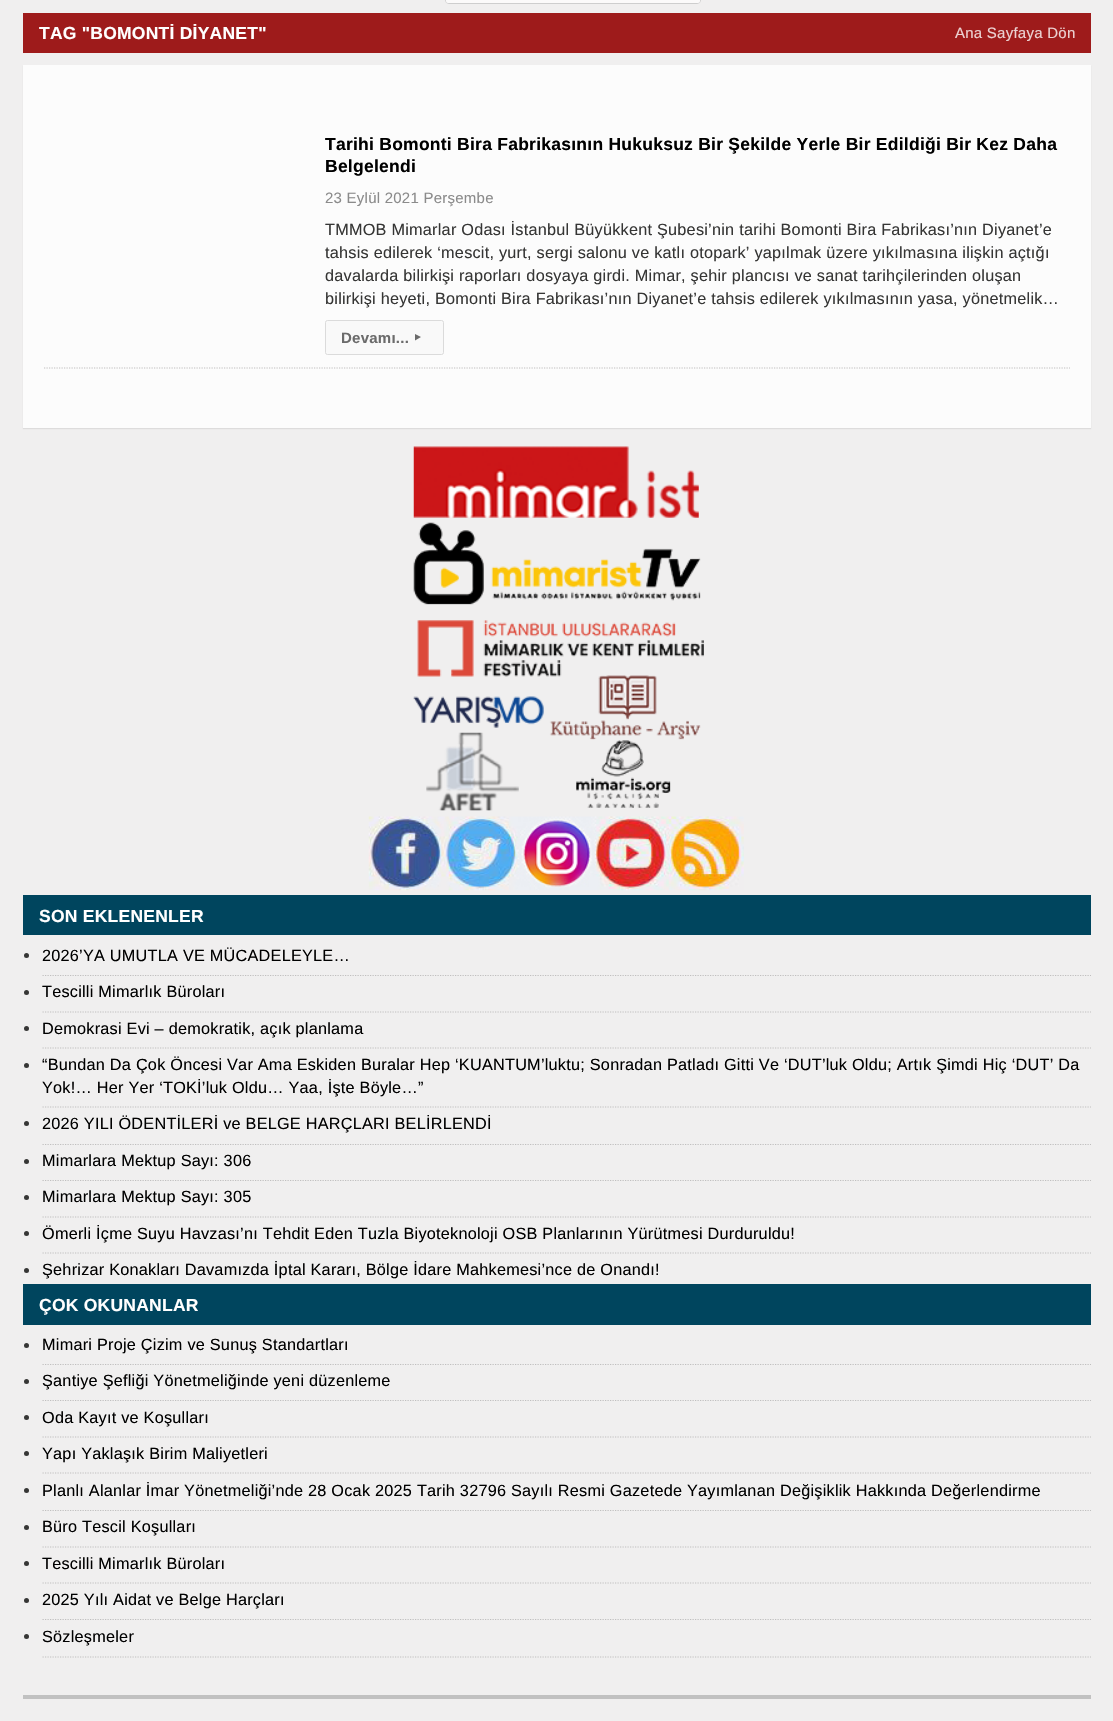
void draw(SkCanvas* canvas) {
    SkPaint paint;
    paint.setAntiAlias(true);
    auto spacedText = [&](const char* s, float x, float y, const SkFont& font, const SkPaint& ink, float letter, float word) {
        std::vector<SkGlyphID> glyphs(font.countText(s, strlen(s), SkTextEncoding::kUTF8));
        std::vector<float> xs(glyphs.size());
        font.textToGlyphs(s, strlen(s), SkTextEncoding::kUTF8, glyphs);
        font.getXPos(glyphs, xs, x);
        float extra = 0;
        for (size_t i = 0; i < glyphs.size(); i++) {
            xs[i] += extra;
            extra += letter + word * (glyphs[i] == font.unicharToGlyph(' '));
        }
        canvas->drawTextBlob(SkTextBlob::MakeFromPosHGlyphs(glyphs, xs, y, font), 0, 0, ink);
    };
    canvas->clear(0xFFF0EFEF);
    paint.setStyle(SkPaint::kStroke_Style);
    paint.setStrokeWidth(1);
    paint.setColor(0xFFCECECE);
    canvas->drawRoundRect(SkRect::MakeXYWH(445.5f, -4.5f, 255, 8), 3.5f, 3.5f, paint);
    paint.setStyle(SkPaint::kFill_Style);
    paint.setColor(0xFFFBFAFA);
    canvas->drawRoundRect(SkRect::MakeXYWH(446, -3, 254, 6), 2.5f, 2.5f, paint);
    paint.setColor(0xFF9E1B1B);
    canvas->drawRect(SkRect::MakeXYWH(23, 13, 1068, 40), paint);
    SkFont font1(fontMgr->matchFamilyStyle("Liberation Sans", SkFontStyle::Bold()), 17.5f);
    font1.setSubpixel(true);
    paint.setColor(0xFFFFFFFF);
    spacedText("TAG \"BOMONTİ DİYANET\"", 39, 39, font1, paint, 0.24f, 0);
    SkFont font2(fontMgr->matchFamilyStyle("Liberation Sans", SkFontStyle::Normal()), 15);
    font2.setSubpixel(true);
    paint.setColor(0xFFECD1D1);
    spacedText("Ana Sayfaya Dön", 955, 38, font2, paint, 0.25f, 0);
    paint.setColor(0x14000000);
    paint.setMaskFilter(SkMaskFilter::MakeBlur(kNormal_SkBlurStyle, 0.5f));
    canvas->drawRect(SkRect::MakeXYWH(23, 66, 1068, 363), paint);
    paint.setMaskFilter(nullptr);
    paint.setColor(0xFFFCFCFC);
    canvas->drawRect(SkRect::MakeXYWH(23, 65, 1068, 363), paint);
    paint.setStyle(SkPaint::kStroke_Style);
    paint.setStrokeWidth(1.2f);
    paint.setColor(0xFFC0BFBF);
    paint.setPathEffect(SkDashPathEffect::Make({{1.25f, 1.25f}}, 0));
    canvas->drawPath(SkPathBuilder().moveTo(44, 368).lineTo(1070, 368).detach(), paint);
    paint.setPathEffect(nullptr);
    paint.setStyle(SkPaint::kFill_Style);
    paint.setColor(0xFF000000);
    spacedText("Tarihi Bomonti Bira Fabrikasının Hukuksuz Bir Şekilde Yerle Bir Edildiği Bir Kez Daha", 325, 150, font1, paint, 0.25f, 0);
    spacedText("Belgelendi", 325, 172, font1, paint, 0.25f, 0);
    paint.setColor(0xFF8B8B8B);
    spacedText("23 Eylül 2021 Perşembe", 325, 203, font2, paint, 0.24f, 0);
    SkFont font3(fontMgr->matchFamilyStyle("Liberation Sans", SkFontStyle::Normal()), 16.25f);
    font3.setSubpixel(true);
    paint.setColor(0xFF363635);
    spacedText("TMMOB Mimarlar Odası İstanbul Büyükkent Şubesi’nin tarihi Bomonti Bira Fabrikası’nın Diyanet’e", 325, 235, font3, paint, 0.24f, 0);
    spacedText("tahsis edilerek ‘mescit, yurt, sergi salonu ve katlı otopark’ yapılmak üzere yıkılmasına ilişkin açtığı", 325, 258, font3, paint, 0.24f, 0);
    spacedText("davalarda bilirkişi raporları dosyaya girdi. Mimar, şehir plancısı ve sanat tarihçilerinden oluşan", 325, 281, font3, paint, 0.24f, 0);
    spacedText("bilirkişi heyeti, Bomonti Bira Fabrikası’nın Diyanet’e tahsis edilerek yıkılmasının yasa, yönetmelik…", 325, 304, font3, paint, 0.24f, 0);
    paint.setColor(0xFFF9F9F9);
    canvas->drawRoundRect(SkRect::MakeXYWH(325.5f, 320.5f, 118, 34), 2, 2, paint);
    paint.setStyle(SkPaint::kStroke_Style);
    paint.setStrokeWidth(1);
    paint.setColor(0xFFDBDBDB);
    canvas->drawRoundRect(SkRect::MakeXYWH(325.5f, 320.5f, 118, 34), 2, 2, paint);
    SkFont font4(fontMgr->matchFamilyStyle("Liberation Sans", SkFontStyle::Bold()), 15);
    font4.setSubpixel(true);
    paint.setStyle(SkPaint::kFill_Style);
    paint.setColor(0xFF6B6B6B);
    spacedText("Devamı...", 341, 343, font4, paint, 0.25f, 0);
    canvas->drawPath(SkPathBuilder().moveTo(415, 334).lineTo(421, 337).lineTo(415, 340.5f).close().detach(), paint);
    canvas->drawImageRect(SkImages::DeferredFromEncodedData(SkData::MakeFromFileName("img1.png")), SkRect::MakeXYWH(413, 446, 291, 365), SkSamplingOptions());
    canvas->drawImageRect(SkImages::DeferredFromEncodedData(SkData::MakeFromFileName("img2.png")), SkRect::MakeXYWH(368, 816, 376, 75), SkSamplingOptions());
    paint.setColor(0xFF00455E);
    canvas->drawRect(SkRect::MakeXYWH(23, 895, 1068, 40), paint);
    paint.setColor(0xFFFFFFFF);
    spacedText("SON EKLENENLER", 39, 922, font1, paint, 0.24f, 0);
    paint.setStyle(SkPaint::kStroke_Style);
    paint.setStrokeWidth(1.2f);
    paint.setColor(0xFFC0BFBF);
    paint.setPathEffect(SkDashPathEffect::Make({{1.25f, 1.25f}}, 0));
    canvas->drawPath(SkPathBuilder().moveTo(42.5f, 975.5f).lineTo(1091, 975.5f).detach(), paint);
    paint.setPathEffect(nullptr);
    paint.setStyle(SkPaint::kFill_Style);
    paint.setColor(0xFF363635);
    canvas->drawCircle(26.5f, 955.5f, 2.5f, paint);
    paint.setColor(0xFF000000);
    spacedText("2026’YA UMUTLA VE MÜCADELEYLE…", 42, 961, font3, paint, 0.24f, 0);
    paint.setStyle(SkPaint::kStroke_Style);
    paint.setColor(0xFFC0BFBF);
    paint.setPathEffect(SkDashPathEffect::Make({{1.25f, 1.25f}}, 0));
    canvas->drawPath(SkPathBuilder().moveTo(42.5f, 1012).lineTo(1091, 1012).detach(), paint);
    paint.setPathEffect(nullptr);
    paint.setStyle(SkPaint::kFill_Style);
    paint.setColor(0xFF363635);
    canvas->drawCircle(26.5f, 992.5f, 2.5f, paint);
    paint.setColor(0xFF000000);
    spacedText("Tescilli Mimarlık Büroları", 42, 997, font3, paint, 0.24f, 0);
    paint.setStyle(SkPaint::kStroke_Style);
    paint.setColor(0xFFC0BFBF);
    paint.setPathEffect(SkDashPathEffect::Make({{1.25f, 1.25f}}, 0));
    canvas->drawPath(SkPathBuilder().moveTo(42.5f, 1048).lineTo(1091, 1048).detach(), paint);
    paint.setPathEffect(nullptr);
    paint.setStyle(SkPaint::kFill_Style);
    paint.setColor(0xFF363635);
    canvas->drawCircle(26.5f, 1028.5f, 2.5f, paint);
    paint.setColor(0xFF000000);
    spacedText("Demokrasi Evi – demokratik, açık planlama", 42, 1034, font3, paint, 0.24f, 0);
    paint.setStyle(SkPaint::kStroke_Style);
    paint.setColor(0xFFC0BFBF);
    paint.setPathEffect(SkDashPathEffect::Make({{1.25f, 1.25f}}, 0));
    canvas->drawPath(SkPathBuilder().moveTo(42.5f, 1107).lineTo(1091, 1107).detach(), paint);
    paint.setPathEffect(nullptr);
    paint.setStyle(SkPaint::kFill_Style);
    paint.setColor(0xFF363635);
    canvas->drawCircle(26.5f, 1065.5f, 2.5f, paint);
    paint.setColor(0xFF000000);
    spacedText("“Bundan Da Çok Öncesi Var Ama Eskiden Buralar Hep ‘KUANTUM’luktu; Sonradan Patladı Gitti Ve ‘DUT’luk Oldu; Artık Şimdi Hiç ‘DUT’ Da", 42, 1070, font3, paint, 0.24f, 0);
    spacedText("Yok!… Her Yer ‘TOKİ’luk Oldu… Yaa, İşte Böyle…”", 42, 1093, font3, paint, 0.24f, 0);
    paint.setStyle(SkPaint::kStroke_Style);
    paint.setColor(0xFFC0BFBF);
    paint.setPathEffect(SkDashPathEffect::Make({{1.25f, 1.25f}}, 0));
    canvas->drawPath(SkPathBuilder().moveTo(42.5f, 1144.5f).lineTo(1091, 1144.5f).detach(), paint);
    paint.setPathEffect(nullptr);
    paint.setStyle(SkPaint::kFill_Style);
    paint.setColor(0xFF363635);
    canvas->drawCircle(26.5f, 1123.5f, 2.5f, paint);
    paint.setColor(0xFF000000);
    spacedText("2026 YILI ÖDENTİLERİ ve BELGE HARÇLARI BELİRLENDİ", 42, 1129, font3, paint, 0.24f, 0);
    paint.setStyle(SkPaint::kStroke_Style);
    paint.setColor(0xFFC0BFBF);
    paint.setPathEffect(SkDashPathEffect::Make({{1.25f, 1.25f}}, 0));
    canvas->drawPath(SkPathBuilder().moveTo(42.5f, 1180.5f).lineTo(1091, 1180.5f).detach(), paint);
    paint.setPathEffect(nullptr);
    paint.setStyle(SkPaint::kFill_Style);
    paint.setColor(0xFF363635);
    canvas->drawCircle(26.5f, 1161.5f, 2.5f, paint);
    paint.setColor(0xFF000000);
    spacedText("Mimarlara Mektup Sayı: 306", 42, 1166, font3, paint, 0.24f, 0);
    paint.setStyle(SkPaint::kStroke_Style);
    paint.setColor(0xFFC0BFBF);
    paint.setPathEffect(SkDashPathEffect::Make({{1.25f, 1.25f}}, 0));
    canvas->drawPath(SkPathBuilder().moveTo(42.5f, 1217).lineTo(1091, 1217).detach(), paint);
    paint.setPathEffect(nullptr);
    paint.setStyle(SkPaint::kFill_Style);
    paint.setColor(0xFF363635);
    canvas->drawCircle(26.5f, 1197.5f, 2.5f, paint);
    paint.setColor(0xFF000000);
    spacedText("Mimarlara Mektup Sayı: 305", 42, 1202, font3, paint, 0.24f, 0);
    paint.setStyle(SkPaint::kStroke_Style);
    paint.setColor(0xFFC0BFBF);
    paint.setPathEffect(SkDashPathEffect::Make({{1.25f, 1.25f}}, 0));
    canvas->drawPath(SkPathBuilder().moveTo(42.5f, 1253).lineTo(1091, 1253).detach(), paint);
    paint.setPathEffect(nullptr);
    paint.setStyle(SkPaint::kFill_Style);
    paint.setColor(0xFF363635);
    canvas->drawCircle(26.5f, 1233.5f, 2.5f, paint);
    paint.setColor(0xFF000000);
    spacedText("Ömerli İçme Suyu Havzası’nı Tehdit Eden Tuzla Biyoteknoloji OSB Planlarının Yürütmesi Durduruldu!", 42, 1239, font3, paint, 0.24f, 0);
    paint.setColor(0xFF363635);
    canvas->drawCircle(26.5f, 1270.5f, 2.5f, paint);
    paint.setColor(0xFF000000);
    spacedText("Şehrizar Konakları Davamızda İptal Kararı, Bölge İdare Mahkemesi’nce de Onandı!", 42, 1275, font3, paint, 0.24f, 0);
    paint.setColor(0xFF00455E);
    canvas->drawRect(SkRect::MakeXYWH(23, 1284, 1068, 41), paint);
    paint.setColor(0xFFFFFFFF);
    spacedText("ÇOK OKUNANLAR", 39, 1311, font1, paint, 0.24f, 0);
    paint.setStyle(SkPaint::kStroke_Style);
    paint.setColor(0xFFC0BFBF);
    paint.setPathEffect(SkDashPathEffect::Make({{1.25f, 1.25f}}, 0));
    canvas->drawPath(SkPathBuilder().moveTo(42.5f, 1364.5f).lineTo(1091, 1364.5f).detach(), paint);
    paint.setPathEffect(nullptr);
    paint.setStyle(SkPaint::kFill_Style);
    paint.setColor(0xFF363635);
    canvas->drawCircle(26.5f, 1345.5f, 2.5f, paint);
    paint.setColor(0xFF000000);
    spacedText("Mimari Proje Çizim ve Sunuş Standartları", 42, 1350, font3, paint, 0.24f, 0);
    paint.setStyle(SkPaint::kStroke_Style);
    paint.setColor(0xFFC0BFBF);
    paint.setPathEffect(SkDashPathEffect::Make({{1.25f, 1.25f}}, 0));
    canvas->drawPath(SkPathBuilder().moveTo(42.5f, 1400.5f).lineTo(1091, 1400.5f).detach(), paint);
    paint.setPathEffect(nullptr);
    paint.setStyle(SkPaint::kFill_Style);
    paint.setColor(0xFF363635);
    canvas->drawCircle(26.5f, 1381.5f, 2.5f, paint);
    paint.setColor(0xFF000000);
    spacedText("Şantiye Şefliği Yönetmeliğinde yeni düzenleme", 42, 1386, font3, paint, 0.24f, 0);
    paint.setStyle(SkPaint::kStroke_Style);
    paint.setColor(0xFFC0BFBF);
    paint.setPathEffect(SkDashPathEffect::Make({{1.25f, 1.25f}}, 0));
    canvas->drawPath(SkPathBuilder().moveTo(42.5f, 1437).lineTo(1091, 1437).detach(), paint);
    paint.setPathEffect(nullptr);
    paint.setStyle(SkPaint::kFill_Style);
    paint.setColor(0xFF363635);
    canvas->drawCircle(26.5f, 1417.5f, 2.5f, paint);
    paint.setColor(0xFF000000);
    spacedText("Oda Kayıt ve Koşulları", 42, 1423, font3, paint, 0.24f, 0);
    paint.setStyle(SkPaint::kStroke_Style);
    paint.setColor(0xFFC0BFBF);
    paint.setPathEffect(SkDashPathEffect::Make({{1.25f, 1.25f}}, 0));
    canvas->drawPath(SkPathBuilder().moveTo(42.5f, 1473).lineTo(1091, 1473).detach(), paint);
    paint.setPathEffect(nullptr);
    paint.setStyle(SkPaint::kFill_Style);
    paint.setColor(0xFF363635);
    canvas->drawCircle(26.5f, 1453.5f, 2.5f, paint);
    paint.setColor(0xFF000000);
    spacedText("Yapı Yaklaşık Birim Maliyetleri", 42, 1459, font3, paint, 0.24f, 0);
    paint.setStyle(SkPaint::kStroke_Style);
    paint.setColor(0xFFC0BFBF);
    paint.setPathEffect(SkDashPathEffect::Make({{1.25f, 1.25f}}, 0));
    canvas->drawPath(SkPathBuilder().moveTo(42.5f, 1510.5f).lineTo(1091, 1510.5f).detach(), paint);
    paint.setPathEffect(nullptr);
    paint.setStyle(SkPaint::kFill_Style);
    paint.setColor(0xFF363635);
    canvas->drawCircle(26.5f, 1490.5f, 2.5f, paint);
    paint.setColor(0xFF000000);
    spacedText("Planlı Alanlar İmar Yönetmeliği’nde 28 Ocak 2025 Tarih 32796 Sayılı Resmi Gazetede Yayımlanan Değişiklik Hakkında Değerlendirme", 42, 1496, font3, paint, 0.24f, 0);
    paint.setStyle(SkPaint::kStroke_Style);
    paint.setColor(0xFFC0BFBF);
    paint.setPathEffect(SkDashPathEffect::Make({{1.25f, 1.25f}}, 0));
    canvas->drawPath(SkPathBuilder().moveTo(42.5f, 1547).lineTo(1091, 1547).detach(), paint);
    paint.setPathEffect(nullptr);
    paint.setStyle(SkPaint::kFill_Style);
    paint.setColor(0xFF363635);
    canvas->drawCircle(26.5f, 1527.5f, 2.5f, paint);
    paint.setColor(0xFF000000);
    spacedText("Büro Tescil Koşulları", 42, 1532, font3, paint, 0.24f, 0);
    paint.setStyle(SkPaint::kStroke_Style);
    paint.setColor(0xFFC0BFBF);
    paint.setPathEffect(SkDashPathEffect::Make({{1.25f, 1.25f}}, 0));
    canvas->drawPath(SkPathBuilder().moveTo(42.5f, 1583).lineTo(1091, 1583).detach(), paint);
    paint.setPathEffect(nullptr);
    paint.setStyle(SkPaint::kFill_Style);
    paint.setColor(0xFF363635);
    canvas->drawCircle(26.5f, 1563.5f, 2.5f, paint);
    paint.setColor(0xFF000000);
    spacedText("Tescilli Mimarlık Büroları", 42, 1569, font3, paint, 0.24f, 0);
    paint.setStyle(SkPaint::kStroke_Style);
    paint.setColor(0xFFC0BFBF);
    paint.setPathEffect(SkDashPathEffect::Make({{1.25f, 1.25f}}, 0));
    canvas->drawPath(SkPathBuilder().moveTo(42.5f, 1619.5f).lineTo(1091, 1619.5f).detach(), paint);
    paint.setPathEffect(nullptr);
    paint.setStyle(SkPaint::kFill_Style);
    paint.setColor(0xFF363635);
    canvas->drawCircle(26.5f, 1600.5f, 2.5f, paint);
    paint.setColor(0xFF000000);
    spacedText("2025 Yılı Aidat ve Belge Harçları", 42, 1605, font3, paint, 0.24f, 0);
    paint.setStyle(SkPaint::kStroke_Style);
    paint.setColor(0xFFC0BFBF);
    paint.setPathEffect(SkDashPathEffect::Make({{1.25f, 1.25f}}, 0));
    canvas->drawPath(SkPathBuilder().moveTo(42.5f, 1657).lineTo(1091, 1657).detach(), paint);
    paint.setPathEffect(nullptr);
    paint.setStyle(SkPaint::kFill_Style);
    paint.setColor(0xFF363635);
    canvas->drawCircle(26.5f, 1636.5f, 2.5f, paint);
    paint.setColor(0xFF000000);
    spacedText("Sözleşmeler", 42, 1642, font3, paint, 0.24f, 0);
    paint.setColor(0xFFC1C1C1);
    canvas->drawRect(SkRect::MakeXYWH(23, 1695, 1068, 4), paint);
}
